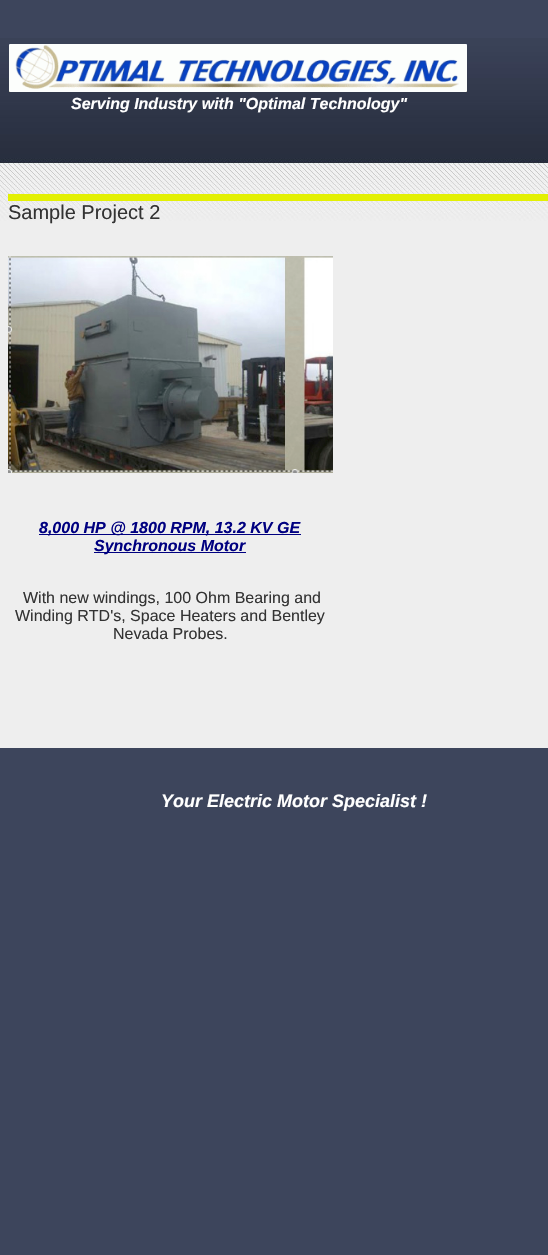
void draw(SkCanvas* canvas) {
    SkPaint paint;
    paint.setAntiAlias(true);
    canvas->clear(0xFF3D455C);
    paint.setColor(0xFFEEEEEE);
    canvas->drawRect(SkRect::MakeXYWH(0, 221, 548, 527), paint);
    canvas->drawImageRect(SkImages::DeferredFromEncodedData(SkData::MakeFromFileName("img1.png")), SkRect::MakeXYWH(0, 38, 548, 183), SkSamplingOptions());
    canvas->drawImageRect(SkImages::DeferredFromEncodedData(SkData::MakeFromFileName("img2.png")), SkRect::MakeXYWH(9, 44, 458, 48), SkSamplingOptions());
    SkFont font1(fontMgr->matchFamilyStyle("Liberation Sans", SkFontStyle::BoldItalic()), 16);
    font1.setSubpixel(true);
    paint.setColor(0xFFFFFFFF);
    canvas->drawString("Serving Industry with \"Optimal Technology\"", 71, 109, font1, paint);
    paint.setColor(0xFFE3F003);
    canvas->drawRect(SkRect::MakeXYWH(8, 194, 540, 7), paint);
    SkFont font2(fontMgr->matchFamilyStyle("Liberation Sans", SkFontStyle::Normal()), 20);
    font2.setSubpixel(true);
    paint.setColor(0xFF333333);
    canvas->drawString("Sample Project 2", 8, 219, font2, paint);
    canvas->drawImageRect(SkImages::DeferredFromEncodedData(SkData::MakeFromFileName("img3.png")), SkRect::MakeXYWH(8, 256, 325, 217), SkSamplingOptions());
    paint.setColor(0xFF000080);
    canvas->drawRect(SkRect::MakeXYWH(39, 534, 262, 1), paint);
    canvas->drawString("8,000 HP @ 1800 RPM, 13.2 KV GE", 39, 533, font1, paint);
    canvas->drawRect(SkRect::MakeXYWH(94, 552, 152, 1), paint);
    canvas->drawString("Synchronous Motor", 94, 551, font1, paint);
    SkFont font3(fontMgr->matchFamilyStyle("Liberation Sans", SkFontStyle::Normal()), 16);
    font3.setSubpixel(true);
    paint.setColor(0xFF333333);
    canvas->drawString("With new windings, 100 Ohm Bearing and", 23, 603, font3, paint);
    canvas->drawString("Winding RTD's, Space Heaters and Bentley", 15, 621, font3, paint);
    canvas->drawString("Nevada Probes.", 113, 639, font3, paint);
    SkFont font4(fontMgr->matchFamilyStyle("Liberation Sans", SkFontStyle::BoldItalic()), 18);
    font4.setSubpixel(true);
    paint.setColor(0xFFFFFFFF);
    canvas->drawString("Your Electric Motor Specialist !", 161, 807, font4, paint);
}
